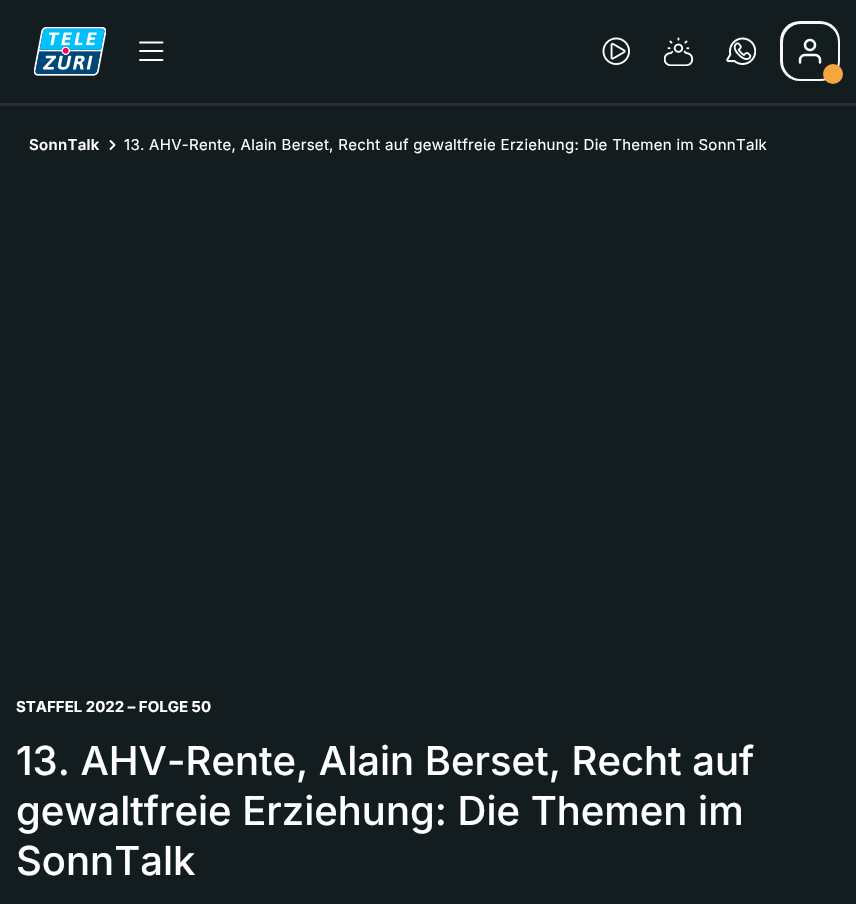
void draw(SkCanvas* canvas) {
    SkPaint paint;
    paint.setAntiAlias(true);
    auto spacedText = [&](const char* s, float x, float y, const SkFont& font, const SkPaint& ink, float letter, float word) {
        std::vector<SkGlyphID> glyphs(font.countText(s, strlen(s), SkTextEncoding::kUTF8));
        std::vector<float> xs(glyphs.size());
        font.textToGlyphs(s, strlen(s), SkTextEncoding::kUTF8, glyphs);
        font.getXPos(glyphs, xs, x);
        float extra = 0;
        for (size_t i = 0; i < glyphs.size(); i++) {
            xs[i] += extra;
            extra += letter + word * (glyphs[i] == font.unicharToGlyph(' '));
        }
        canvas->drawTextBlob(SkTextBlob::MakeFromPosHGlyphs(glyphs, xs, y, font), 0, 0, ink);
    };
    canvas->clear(0xFF131C1F);
    paint.setColor(0xFF262E31);
    canvas->drawRect(SkRect::MakeXYWH(0, 103, 856, 3), paint);
    canvas->drawImageRect(SkImages::DeferredFromEncodedData(SkData::MakeFromFileName("img1.png")), SkRect::MakeXYWH(34, 27, 72, 49), SkSamplingOptions());
    paint.setStyle(SkPaint::kStroke_Style);
    paint.setStrokeWidth(1.9f);
    paint.setStrokeCap(SkPaint::kRound_Cap);
    paint.setStrokeJoin(SkPaint::kRound_Join);
    paint.setColor(0xFFFFFFFF);
    canvas->drawPath(SkPathBuilder().moveTo(140, 42.5f).lineTo(162.5f, 42.5f).moveTo(140, 51).lineTo(162.5f, 51).moveTo(140, 60).lineTo(162.5f, 60).detach(), paint);
    canvas->drawImageRect(SkImages::DeferredFromEncodedData(SkData::MakeFromFileName("img2.png")), SkRect::MakeXYWH(602, 37, 28, 28), SkSamplingOptions());
    canvas->drawImageRect(SkImages::DeferredFromEncodedData(SkData::MakeFromFileName("img3.png")), SkRect::MakeXYWH(664, 37, 30, 29), SkSamplingOptions());
    canvas->drawImageRect(SkImages::DeferredFromEncodedData(SkData::MakeFromFileName("img4.png")), SkRect::MakeXYWH(726, 37, 30, 28), SkSamplingOptions());
    paint.setStyle(SkPaint::kFill_Style);
    paint.setColor(0xFFF7F7F7);
    canvas->drawRoundRect(SkRect::MakeXYWH(780, 21, 60, 60), 20, 20, paint);
    paint.setColor(0xFF131C1F);
    canvas->drawRoundRect(SkRect::MakeXYWH(783, 24, 55, 55), 18, 18, paint);
    canvas->drawImageRect(SkImages::DeferredFromEncodedData(SkData::MakeFromFileName("img5.png")), SkRect::MakeXYWH(798, 38, 24, 26), SkSamplingOptions());
    paint.setColor(0xFFF7A63D);
    canvas->drawCircle(833, 74, 10, paint);
    SkFont font1(fontMgr->matchFamilyStyle("Inter", SkFontStyle(600, SkFontStyle::kNormal_Width, SkFontStyle::kUpright_Slant)), 15);
    font1.setSubpixel(true);
    paint.setColor(0xFFFFFFFF);
    spacedText("SonnTalk", 29, 150, font1, paint, 0.3f, 0);
    paint.setStyle(SkPaint::kStroke_Style);
    canvas->drawPath(SkPathBuilder().moveTo(110.5f, 149).lineTo(114.5f, 145).lineTo(110.5f, 141).detach(), paint);
    SkFont font2(fontMgr->matchFamilyStyle("Inter", SkFontStyle::Normal()), 15);
    font2.setSubpixel(true);
    paint.setStyle(SkPaint::kFill_Style);
    spacedText("13. AHV-Rente, Alain Berset, Recht auf gewaltfreie Erziehung: Die Themen im SonnTalk", 124, 150, font2, paint, 0.3f, 0);
    SkFont font3(fontMgr->matchFamilyStyle("Inter", SkFontStyle::Bold()), 15);
    font3.setSubpixel(true);
    canvas->drawString("STAFFEL 2022 – FOLGE 50", 16, 712, font3, paint);
    SkFont font4(fontMgr->matchFamilyStyle("Inter", SkFontStyle(500, SkFontStyle::kNormal_Width, SkFontStyle::kUpright_Slant)), 40);
    font4.setSubpixel(true);
    canvas->drawString("13. AHV-Rente, Alain Berset, Recht auf", 16, 775, font4, paint);
    canvas->drawString("gewaltfreie Erziehung: Die Themen im", 16, 825, font4, paint);
    canvas->drawString("SonnTalk", 16, 875, font4, paint);
}
